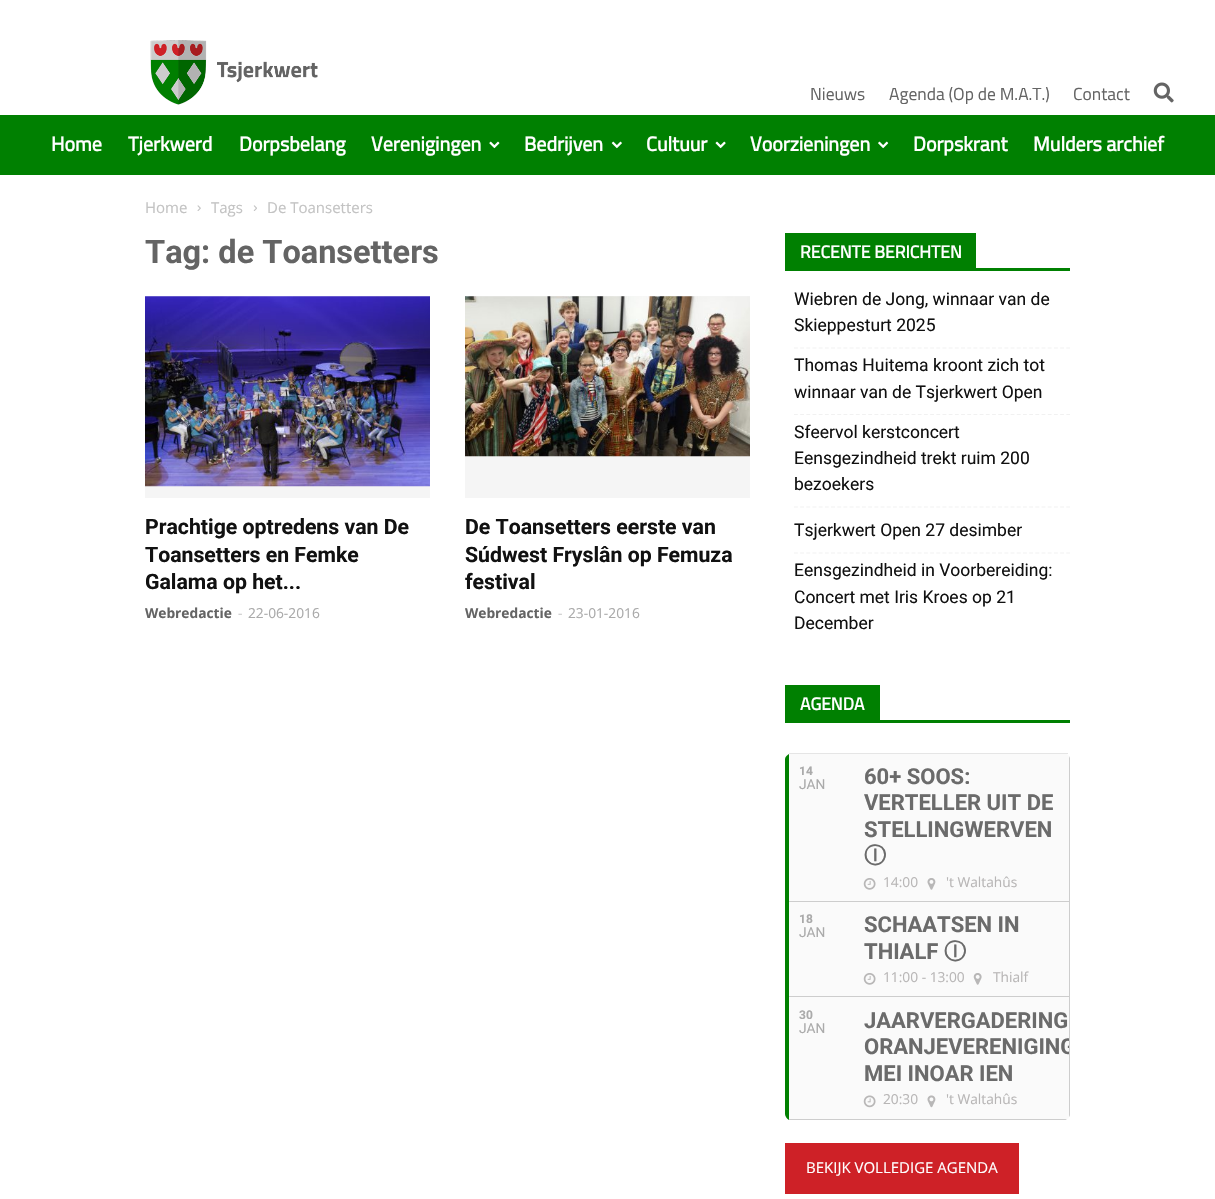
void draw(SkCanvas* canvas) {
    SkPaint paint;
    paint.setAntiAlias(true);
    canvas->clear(0xFFFFFFFF);
    canvas->drawImageRect(SkImages::DeferredFromEncodedData(SkData::MakeFromFileName("img1.png")), SkRect::MakeXYWH(150, 40, 168, 65), SkSamplingOptions());
    SkFont font1(fontMgr->matchFamilyStyle("Cairo", SkFontStyle::Normal()), 17.5f);
    font1.setSubpixel(true);
    paint.setColor(0xFF646464);
    canvas->drawString("Nieuws", 810, 100, font1, paint);
    canvas->drawString("Agenda (Op de M.A.T.)", 889, 100, font1, paint);
    canvas->drawString("Contact", 1073, 100, font1, paint);
    canvas->drawImageRect(SkImages::DeferredFromEncodedData(SkData::MakeFromFileName("img2.png")), SkRect::MakeXYWH(1153, 82, 21, 21), SkSamplingOptions());
    paint.setColor(0xFF008001);
    canvas->drawRect(SkRect::MakeXYWH(0, 115, 1215, 60), paint);
    SkFont font2(fontMgr->matchFamilyStyle("Cairo", SkFontStyle::Bold()), 20);
    font2.setSubpixel(true);
    paint.setColor(0xFFFFFFFF);
    canvas->drawString("Home", 51, 151, font2, paint);
    canvas->drawString("Tjerkwerd", 128, 151, font2, paint);
    canvas->drawString("Dorpsbelang", 239, 151, font2, paint);
    canvas->drawString("Verenigingen", 371, 151, font2, paint);
    canvas->drawImageRect(SkImages::DeferredFromEncodedData(SkData::MakeFromFileName("img3.png")), SkRect::MakeXYWH(489, 141, 11, 8), SkSamplingOptions());
    canvas->drawString("Bedrijven", 524, 151, font2, paint);
    canvas->drawImageRect(SkImages::DeferredFromEncodedData(SkData::MakeFromFileName("img4.png")), SkRect::MakeXYWH(611, 141, 11, 8), SkSamplingOptions());
    canvas->drawString("Cultuur", 646, 151, font2, paint);
    canvas->drawImageRect(SkImages::DeferredFromEncodedData(SkData::MakeFromFileName("img5.png")), SkRect::MakeXYWH(715, 141, 11, 8), SkSamplingOptions());
    canvas->drawString("Voorzieningen", 750, 151, font2, paint);
    canvas->drawImageRect(SkImages::DeferredFromEncodedData(SkData::MakeFromFileName("img6.png")), SkRect::MakeXYWH(878, 141, 11, 8), SkSamplingOptions());
    canvas->drawString("Dorpskrant", 913, 151, font2, paint);
    canvas->drawString("Mulders archief", 1033, 151, font2, paint);
    SkFont font3(fontMgr->matchFamilyStyle("Open Sans", SkFontStyle::Normal()), 15);
    font3.setSubpixel(true);
    paint.setColor(0xFFC3C3C3);
    canvas->drawString("Home", 145, 213, font3, paint);
    canvas->drawImageRect(SkImages::DeferredFromEncodedData(SkData::MakeFromFileName("img7.png")), SkRect::MakeXYWH(197, 205, 4, 6), SkSamplingOptions());
    canvas->drawString("Tags", 211, 213, font3, paint);
    canvas->drawImageRect(SkImages::DeferredFromEncodedData(SkData::MakeFromFileName("img8.png")), SkRect::MakeXYWH(253, 205, 4, 6), SkSamplingOptions());
    canvas->drawString("De Toansetters", 267, 213, font3, paint);
    SkFont font4(fontMgr->matchFamilyStyle("Roboto", SkFontStyle::Bold()), 32.5f);
    font4.setSubpixel(true);
    paint.setColor(0xFF646464);
    canvas->drawString("Tag: de Toansetters", 145, 263, font4, paint);
    paint.setColor(0xFFF5F5F5);
    canvas->drawRect(SkRect::MakeXYWH(145, 296, 285, 202), paint);
    canvas->drawImageRect(SkImages::DeferredFromEncodedData(SkData::MakeFromFileName("img9.png")), SkRect::MakeXYWH(145, 296, 285, 191), SkSamplingOptions());
    SkFont font5(fontMgr->matchFamilyStyle("Roboto", SkFontStyle::Bold()), 21.25f);
    font5.setSubpixel(true);
    paint.setColor(0xFF111111);
    canvas->drawString("Prachtige optredens van De", 145, 534, font5, paint);
    canvas->drawString("Toansetters en Femke", 145, 562, font5, paint);
    canvas->drawString("Galama op het...", 145, 589, font5, paint);
    SkFont font6(fontMgr->matchFamilyStyle("Open Sans", SkFontStyle::Bold()), 13.75f);
    font6.setSubpixel(true);
    paint.setColor(0xFF646464);
    canvas->drawString("Webredactie", 145, 618, font6, paint);
    SkFont font7(fontMgr->matchFamilyStyle("Open Sans", SkFontStyle::Normal()), 13.75f);
    font7.setSubpixel(true);
    paint.setColor(0xFFCCCCCC);
    canvas->drawString("-", 238, 618, font7, paint);
    paint.setColor(0xFFAAAAAA);
    canvas->drawString("22-06-2016", 248, 618, font7, paint);
    paint.setColor(0xFFF5F5F5);
    canvas->drawRect(SkRect::MakeXYWH(465, 296, 285, 202), paint);
    canvas->drawImageRect(SkImages::DeferredFromEncodedData(SkData::MakeFromFileName("img10.png")), SkRect::MakeXYWH(465, 296, 285, 161), SkSamplingOptions());
    paint.setColor(0xFF111111);
    canvas->drawString("De Toansetters eerste van", 465, 534, font5, paint);
    canvas->drawString("Súdwest Fryslân op Femuza", 465, 562, font5, paint);
    canvas->drawString("festival", 465, 589, font5, paint);
    paint.setColor(0xFF646464);
    canvas->drawString("Webredactie", 465, 618, font6, paint);
    paint.setColor(0xFFCCCCCC);
    canvas->drawString("-", 558, 618, font7, paint);
    paint.setColor(0xFFAAAAAA);
    canvas->drawString("23-01-2016", 568, 618, font7, paint);
    paint.setColor(0xFF008001);
    canvas->drawRect(SkRect::MakeXYWH(785, 268, 285, 3), paint);
    canvas->drawRect(SkRect::MakeXYWH(785, 233, 191, 35), paint);
    SkFont font8(fontMgr->matchFamilyStyle("Cairo", SkFontStyle::Bold()), 17.5f);
    font8.setSubpixel(true);
    paint.setColor(0xFFFFFFFF);
    canvas->drawString("RECENTE BERICHTEN", 800, 258, font8, paint);
    paint.setStyle(SkPaint::kStroke_Style);
    paint.setStrokeWidth(1.2f);
    paint.setColor(0xFFF1F1F1);
    paint.setPathEffect(SkDashPathEffect::Make({{3.75f, 2.44f}}, 0));
    canvas->drawPath(SkPathBuilder().moveTo(794, 348).lineTo(1070, 348).detach(), paint);
    paint.setPathEffect(nullptr);
    SkFont font9(fontMgr->matchFamilyStyle("Roboto", SkFontStyle::Normal()), 17.5f);
    font9.setSubpixel(true);
    paint.setStyle(SkPaint::kFill_Style);
    paint.setColor(0xFF111111);
    canvas->drawString("Wiebren de Jong, winnaar van de", 794, 305, font9, paint);
    canvas->drawString("Skieppesturt 2025", 794, 331, font9, paint);
    paint.setStyle(SkPaint::kStroke_Style);
    paint.setColor(0xFFF1F1F1);
    paint.setPathEffect(SkDashPathEffect::Make({{3.75f, 2.44f}}, 0));
    canvas->drawPath(SkPathBuilder().moveTo(794, 414.5f).lineTo(1070, 414.5f).detach(), paint);
    paint.setPathEffect(nullptr);
    paint.setStyle(SkPaint::kFill_Style);
    paint.setColor(0xFF111111);
    canvas->drawString("Thomas Huitema kroont zich tot", 794, 371, font9, paint);
    canvas->drawString("winnaar van de Tsjerkwert Open", 794, 398, font9, paint);
    paint.setStyle(SkPaint::kStroke_Style);
    paint.setColor(0xFFF1F1F1);
    paint.setPathEffect(SkDashPathEffect::Make({{3.75f, 2.44f}}, 0));
    canvas->drawPath(SkPathBuilder().moveTo(794, 507).lineTo(1070, 507).detach(), paint);
    paint.setPathEffect(nullptr);
    paint.setStyle(SkPaint::kFill_Style);
    paint.setColor(0xFF111111);
    canvas->drawString("Sfeervol kerstconcert", 794, 438, font9, paint);
    canvas->drawString("Eensgezindheid trekt ruim 200", 794, 464, font9, paint);
    canvas->drawString("bezoekers", 794, 490, font9, paint);
    paint.setStyle(SkPaint::kStroke_Style);
    paint.setColor(0xFFF1F1F1);
    paint.setPathEffect(SkDashPathEffect::Make({{3.75f, 2.44f}}, 0));
    canvas->drawPath(SkPathBuilder().moveTo(794, 553).lineTo(1070, 553).detach(), paint);
    paint.setPathEffect(nullptr);
    paint.setStyle(SkPaint::kFill_Style);
    paint.setColor(0xFF111111);
    canvas->drawString("Tsjerkwert Open 27 desimber", 794, 536, font9, paint);
    canvas->drawString("Eensgezindheid in Voorbereiding:", 794, 576, font9, paint);
    canvas->drawString("Concert met Iris Kroes op 21", 794, 603, font9, paint);
    canvas->drawString("December", 794, 629, font9, paint);
    paint.setColor(0xFF008001);
    canvas->drawRect(SkRect::MakeXYWH(785, 720, 285, 3), paint);
    canvas->drawRect(SkRect::MakeXYWH(785, 685, 95, 35), paint);
    paint.setColor(0xFFFFFFFF);
    canvas->drawString("AGENDA", 800, 710, font8, paint);
    paint.setColor(0xFFE5E5E5);
    canvas->drawRect(SkRect::MakeXYWH(789, 753, 279, 1), paint);
    paint.setColor(0xFFCDCDCD);
    canvas->drawPath(SkPathBuilder().moveTo(1070, 903).lineTo(1070, 758).lineTo(1069, 756).lineTo(1069, 903).close().detach(), paint);
    paint.setColor(0xFFFAFAFA);
    canvas->drawPath(SkPathBuilder().moveTo(785, 759).lineTo(785, 903).lineTo(1069, 903).lineTo(1069, 756).cubicTo(1068, 755, 1067, 754, 1066, 754).lineTo(789, 754).cubicTo(787, 755, 785, 757, 785, 759).close().detach(), paint);
    paint.setColor(0xFF008000);
    canvas->drawPath(SkPathBuilder().moveTo(785, 759).lineTo(785, 903).lineTo(789, 903).lineTo(789, 754).cubicTo(787, 755, 785, 757, 785, 759).close().detach(), paint);
    SkFont font10(fontMgr->matchFamilyStyle("Roboto", SkFontStyle::Bold()), 12);
    font10.setSubpixel(true);
    paint.setColor(0xFFAAAAAA);
    canvas->drawString("14", 799, 775, font10, paint);
    SkFont font11(fontMgr->matchFamilyStyle("Roboto", SkFontStyle::Normal()), 13.75f);
    font11.setSubpixel(true);
    canvas->drawString("JAN", 799, 789, font11, paint);
    SkFont font12(fontMgr->matchFamilyStyle("Roboto", SkFontStyle::Bold()), 22);
    font12.setSubpixel(true);
    paint.setColor(0xFF6B6B6B);
    canvas->drawString("60+ SOOS:", 864, 784, font12, paint);
    canvas->drawString("VERTELLER UIT DE", 864, 810, font12, paint);
    canvas->drawString("STELLINGWERVEN", 864, 837, font12, paint);
    SkFont font13(fontMgr->matchFamilyStyle("WenQuanYi Zen Hei", SkFontStyle::Bold()), 22);
    font13.setSubpixel(true);
    canvas->drawString("Ⓘ", 864, 863, font13, paint);
    canvas->drawImageRect(SkImages::DeferredFromEncodedData(SkData::MakeFromFileName("img11.png")), SkRect::MakeXYWH(863, 878, 13, 12), SkSamplingOptions());
    paint.setColor(0xFFB8B6B6);
    canvas->drawString("14:00", 883, 887, font7, paint);
    canvas->drawImageRect(SkImages::DeferredFromEncodedData(SkData::MakeFromFileName("img12.png")), SkRect::MakeXYWH(927, 878, 9, 12), SkSamplingOptions());
    canvas->drawString("'t Waltahûs", 946, 887, font7, paint);
    paint.setColor(0xFFCDCDCD);
    canvas->drawRect(SkRect::MakeXYWH(789, 901, 280, 1), paint);
    canvas->drawRect(SkRect::MakeXYWH(1069, 903, 1, 95), paint);
    paint.setColor(0xFFFAFAFA);
    canvas->drawRect(SkRect::MakeXYWH(789, 903, 280, 95), paint);
    paint.setColor(0xFF008000);
    canvas->drawRect(SkRect::MakeXYWH(785, 903, 4, 95), paint);
    paint.setColor(0xFFAAAAAA);
    canvas->drawString("18", 799, 923, font10, paint);
    canvas->drawString("JAN", 799, 937, font11, paint);
    paint.setColor(0xFF6B6B6B);
    canvas->drawString("SCHAATSEN IN", 864, 932, font12, paint);
    canvas->drawString("THIALF", 864, 959, font12, paint);
    canvas->drawString("Ⓘ", 944, 959, font13, paint);
    canvas->drawImageRect(SkImages::DeferredFromEncodedData(SkData::MakeFromFileName("img11.png")), SkRect::MakeXYWH(863, 973, 13, 12), SkSamplingOptions());
    paint.setColor(0xFFB8B6B6);
    canvas->drawString("11:00 - 13:00", 883, 982, font7, paint);
    canvas->drawImageRect(SkImages::DeferredFromEncodedData(SkData::MakeFromFileName("img13.png")), SkRect::MakeXYWH(973, 973, 9, 12), SkSamplingOptions());
    canvas->drawString("Thialf", 993, 982, font7, paint);
    paint.setColor(0xFFCDCDCD);
    canvas->drawRect(SkRect::MakeXYWH(789, 996, 280, 1), paint);
    canvas->drawPath(SkPathBuilder().moveTo(1069, 998).lineTo(1069, 1117).cubicTo(1070, 1116, 1070, 1115, 1070, 1114).lineTo(1070, 998).close().detach(), paint);
    paint.setColor(0xFFFAFAFA);
    canvas->drawPath(SkPathBuilder().moveTo(785, 998).lineTo(785, 1114).cubicTo(785, 1117, 788, 1120, 791, 1120).lineTo(1064, 1120).cubicTo(1066, 1120, 1068, 1119, 1069, 1117).lineTo(1069, 998).close().detach(), paint);
    paint.setColor(0xFF008000);
    canvas->drawPath(SkPathBuilder().moveTo(785, 998).lineTo(785, 1114).cubicTo(785, 1116, 787, 1119, 789, 1120).lineTo(789, 998).close().detach(), paint);
    paint.setColor(0xFFAAAAAA);
    canvas->drawString("30", 799, 1019, font10, paint);
    canvas->drawString("JAN", 799, 1033, font11, paint);
    paint.setColor(0xFF6B6B6B);
    canvas->drawString("JAARVERGADERING", 864, 1028, font12, paint);
    canvas->save();
    canvas->clipRect(SkRect::MakeXYWH(789, 998, 280, 122));
    canvas->drawString("ORANJEVERENIGING", 864, 1054, font12, paint);
    canvas->restore();
    canvas->drawString("MEI INOAR IEN", 864, 1081, font12, paint);
    canvas->drawImageRect(SkImages::DeferredFromEncodedData(SkData::MakeFromFileName("img14.png")), SkRect::MakeXYWH(863, 1095, 13, 13), SkSamplingOptions());
    paint.setColor(0xFFB8B6B6);
    canvas->drawString("20:30", 883, 1104, font7, paint);
    canvas->drawImageRect(SkImages::DeferredFromEncodedData(SkData::MakeFromFileName("img15.png")), SkRect::MakeXYWH(927, 1095, 9, 13), SkSamplingOptions());
    canvas->drawString("'t Waltahûs", 946, 1104, font7, paint);
    paint.setColor(0xFFCDCDCD);
    canvas->drawPath(SkPathBuilder().moveTo(789, 1119).lineTo(789, 1120).lineTo(791, 1120).lineTo(1064, 1120).cubicTo(1065, 1120, 1066, 1120, 1067, 1119).close().detach(), paint);
    paint.setColor(0xFFCE2127);
    canvas->drawRect(SkRect::MakeXYWH(785, 1143, 234, 51), paint);
    paint.setColor(0xFFFFFFFF);
    canvas->drawString("BEKIJK VOLLEDIGE AGENDA", 806, 1173, font3, paint);
}
